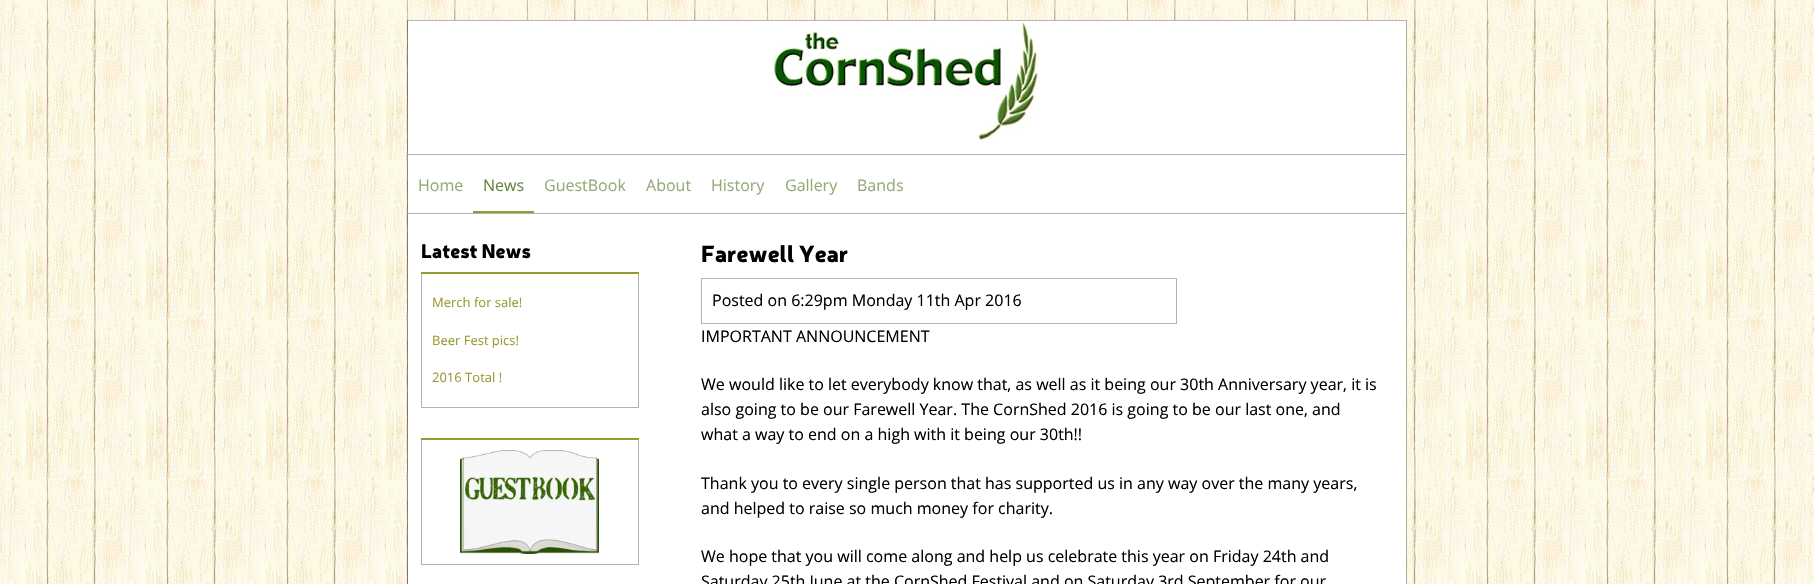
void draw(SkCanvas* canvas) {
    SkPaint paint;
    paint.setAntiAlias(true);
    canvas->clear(0xFFFFFFFF);
    canvas->drawImageRect(SkImages::DeferredFromEncodedData(SkData::MakeFromFileName("img1.png")), SkRect::MakeXYWH(0, 0, 1814, 584), SkSamplingOptions());
    paint.setColor(0x4D000000);
    canvas->drawRect(SkRect::MakeXYWH(1406, 20, 1, 564), paint);
    canvas->drawRect(SkRect::MakeXYWH(407, 20, 1, 564), paint);
    paint.setColor(0xFFFFFFFF);
    canvas->drawRect(SkRect::MakeXYWH(408, 21, 998, 133), paint);
    paint.setColor(0xFFB3B3B3);
    canvas->drawRect(SkRect::MakeXYWH(408, 20, 998, 1), paint);
    canvas->drawImageRect(SkImages::DeferredFromEncodedData(SkData::MakeFromFileName("img2.png")), SkRect::MakeXYWH(773, 21, 265, 120), SkSamplingOptions());
    paint.setColor(0xFFFFFFFF);
    canvas->drawRect(SkRect::MakeXYWH(408, 155, 998, 58), paint);
    paint.setColor(0xFFB3B3B3);
    canvas->drawRect(SkRect::MakeXYWH(408, 154, 998, 1), paint);
    canvas->drawRect(SkRect::MakeXYWH(408, 213, 998, 1), paint);
    SkFont font1(fontMgr->matchFamilyStyle("Open Sans", SkFontStyle::Normal()), 16);
    font1.setSubpixel(true);
    paint.setColor(0xFF94AA77);
    canvas->drawString("Home", 418, 191, font1, paint);
    paint.setColor(0xFF999933);
    canvas->drawRect(SkRect::MakeXYWH(473, 211, 61, 2), paint);
    paint.setColor(0xFF66853D);
    canvas->drawString("News", 483, 191, font1, paint);
    paint.setColor(0xFF94AA77);
    canvas->drawString("GuestBook", 544, 191, font1, paint);
    canvas->drawString("About", 646, 191, font1, paint);
    canvas->drawString("History", 711, 191, font1, paint);
    canvas->drawString("Gallery", 785, 191, font1, paint);
    canvas->drawString("Bands", 857, 191, font1, paint);
    paint.setColor(0xFFFFFFFF);
    canvas->drawRect(SkRect::MakeXYWH(408, 214, 998, 370), paint);
    paint.setColor(0xFF999933);
    canvas->drawRect(SkRect::MakeXYWH(421, 272, 218, 2), paint);
    SkFont font2(fontMgr->matchFamilyStyle("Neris", SkFontStyle(900, SkFontStyle::kNormal_Width, SkFontStyle::kUpright_Slant)), 19.25f);
    font2.setSubpixel(true);
    paint.setColor(0xFF000000);
    canvas->drawString("Latest News", 421, 258, font2, paint);
    paint.setColor(0xFFB3B3B3);
    canvas->drawPath(SkPathBuilder().moveTo(639, 274).lineTo(639, 408).lineTo(638, 407).lineTo(638, 274).close().detach(), paint);
    paint.setColor(0x4D000000);
    canvas->drawPath(SkPathBuilder().moveTo(639, 408).lineTo(421, 408).lineTo(422, 407).lineTo(638, 407).close().detach(), paint);
    canvas->drawPath(SkPathBuilder().moveTo(421, 408).lineTo(421, 274).lineTo(422, 274).lineTo(422, 407).close().detach(), paint);
    SkFont font3(fontMgr->matchFamilyStyle("Open Sans", SkFontStyle::Normal()), 13);
    font3.setSubpixel(true);
    paint.setColor(0xFF999933);
    canvas->drawString("Merch for sale!", 432, 307, font3, paint);
    canvas->drawString("Beer Fest pics!", 432, 345, font3, paint);
    canvas->drawString("2016 Total !", 432, 382, font3, paint);
    canvas->drawRect(SkRect::MakeXYWH(421, 438, 218, 2), paint);
    paint.setColor(0xFFB3B3B3);
    canvas->drawPath(SkPathBuilder().moveTo(639, 440).lineTo(639, 565).lineTo(638, 564).lineTo(638, 440).close().detach(), paint);
    paint.setColor(0x4D000000);
    canvas->drawPath(SkPathBuilder().moveTo(639, 565).lineTo(421, 565).lineTo(422, 564).lineTo(638, 564).close().detach(), paint);
    canvas->drawPath(SkPathBuilder().moveTo(421, 565).lineTo(421, 440).lineTo(422, 440).lineTo(422, 564).close().detach(), paint);
    canvas->drawImageRect(SkImages::DeferredFromEncodedData(SkData::MakeFromFileName("img3.png")), SkRect::MakeXYWH(460, 450, 139, 104), SkSamplingOptions());
    SkFont font4(fontMgr->matchFamilyStyle("Neris", SkFontStyle(900, SkFontStyle::kNormal_Width, SkFontStyle::kUpright_Slant)), 23);
    font4.setSubpixel(true);
    paint.setColor(0xFF000000);
    canvas->drawString("Farewell Year", 701, 262, font4, paint);
    paint.setStyle(SkPaint::kStroke_Style);
    paint.setStrokeWidth(1);
    paint.setColor(0xFFB3B3B3);
    canvas->drawRect(SkRect::MakeXYWH(701.5f, 278.5f, 475, 45), paint);
    paint.setStyle(SkPaint::kFill_Style);
    paint.setColor(0xFF000000);
    canvas->drawString("Posted on 6:29pm Monday 11th Apr 2016", 712, 306, font1, paint);
    canvas->drawString("IMPORTANT ANNOUNCEMENT", 701, 342, font1, paint);
    canvas->drawString("We would like to let everybody know that, as well as it being our 30th Anniversary year, it is", 701, 390, font1, paint);
    canvas->drawString("also going to be our Farewell Year. The CornShed 2016 is going to be our last one, and", 701, 415, font1, paint);
    canvas->drawString("what a way to end on a high with it being our 30th!!", 701, 440, font1, paint);
    canvas->drawString("Thank you to every single person that has supported us in any way over the many years,", 701, 489, font1, paint);
    canvas->drawString("and helped to raise so much money for charity.", 701, 514, font1, paint);
    canvas->drawString("We hope that you will come along and help us celebrate this year on Friday 24th and", 701, 562, font1, paint);
    canvas->drawString("Saturday 25th June at the CornShed Festival and on Saturday 3rd September for our", 701, 587, font1, paint);
}
